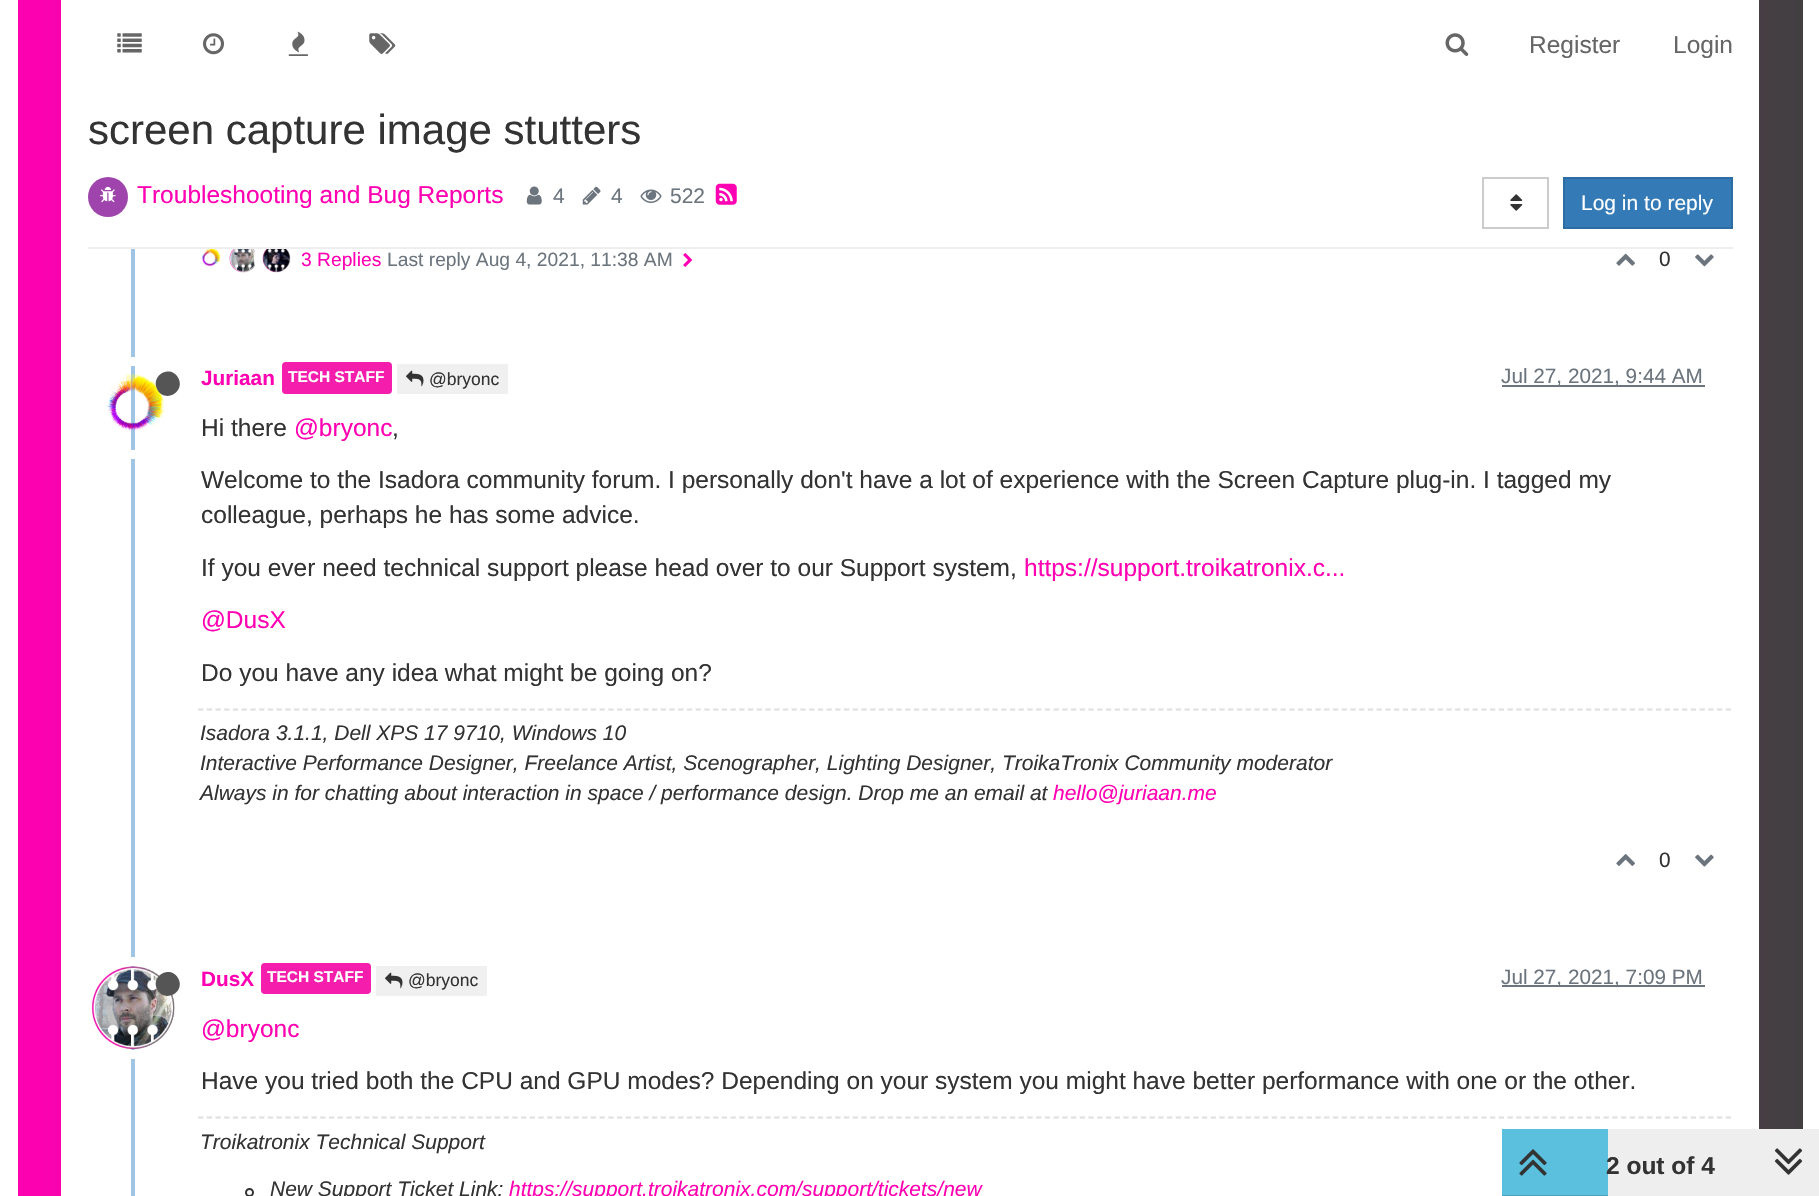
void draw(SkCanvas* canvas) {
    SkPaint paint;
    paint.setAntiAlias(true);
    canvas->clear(0xFFFFFFFF);
    {
        const SkColor colors[] = {0xFFFF00B2, 0xFF404040};
        const float stops[] = {0, 1};
        const SkPoint ends[] = {{0, 28}, {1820, 28}};
        paint.setShader(SkGradientShader::MakeLinear(ends, colors, stops, 2, SkTileMode::kClamp));
        paint.setAlpha(255);
    }
    canvas->drawRect(SkRect::MakeXYWH(18, 0, 1785, 1196), paint);
    paint.setShader(nullptr);
    paint.setColor(0xFFFFFFFF);
    canvas->drawRect(SkRect::MakeXYWH(61, 249, 1698, 947), paint);
    canvas->drawImageRect(SkImages::DeferredFromEncodedData(SkData::MakeFromFileName("img13.png")), SkRect::MakeXYWH(229, 249, 27, 24), SkSamplingOptions());
    paint.setStyle(SkPaint::kStroke_Style);
    paint.setStrokeWidth(9);
    canvas->drawRoundRect(SkRect::MakeXYWH(258.5f, 240.5f, 36, 37), 18, 18, paint);
    paint.setStyle(SkPaint::kFill_Style);
    canvas->drawRect(SkRect::MakeXYWH(61, 0, 1698, 249), paint);
    canvas->drawImageRect(SkImages::DeferredFromEncodedData(SkData::MakeFromFileName("img1.png")), SkRect::MakeXYWH(117, 33, 25, 20), SkSamplingOptions());
    canvas->drawImageRect(SkImages::DeferredFromEncodedData(SkData::MakeFromFileName("img2.png")), SkRect::MakeXYWH(203, 33, 21, 22), SkSamplingOptions());
    canvas->drawImageRect(SkImages::DeferredFromEncodedData(SkData::MakeFromFileName("img3.png")), SkRect::MakeXYWH(288, 31, 20, 25), SkSamplingOptions());
    canvas->drawImageRect(SkImages::DeferredFromEncodedData(SkData::MakeFromFileName("img4.png")), SkRect::MakeXYWH(369, 33, 27, 21), SkSamplingOptions());
    canvas->drawImageRect(SkImages::DeferredFromEncodedData(SkData::MakeFromFileName("img5.png")), SkRect::MakeXYWH(1445, 33, 24, 23), SkSamplingOptions());
    SkFont font1(fontMgr->matchFamilyStyle("Liberation Sans", SkFontStyle::Normal()), 24.5f);
    font1.setSubpixel(true);
    paint.setColor(0xFF666666);
    canvas->drawString("Register", 1529, 53, font1, paint);
    canvas->drawString("Login", 1673, 53, font1, paint);
    SkFont font2(fontMgr->matchFamilyStyle("Liberation Sans", SkFontStyle::Normal()), 42);
    font2.setSubpixel(true);
    paint.setColor(0xFF333333);
    canvas->drawString("screen capture image stutters", 88, 144, font2, paint);
    paint.setColor(0xFFEEEEEE);
    canvas->drawRect(SkRect::MakeXYWH(88, 247, 1645, 2), paint);
    paint.setColor(0xFF9F44AD);
    canvas->drawCircle(108, 197, 20, paint);
    canvas->drawImageRect(SkImages::DeferredFromEncodedData(SkData::MakeFromFileName("img6.png")), SkRect::MakeXYWH(100, 186, 16, 17), SkSamplingOptions());
    paint.setColor(0xFFFF00B2);
    canvas->drawString("Troubleshooting and Bug Reports", 137, 203, font1, paint);
    canvas->drawImageRect(SkImages::DeferredFromEncodedData(SkData::MakeFromFileName("img7.png")), SkRect::MakeXYWH(526, 186, 16, 19), SkSamplingOptions());
    SkFont font3(fontMgr->matchFamilyStyle("Liberation Sans", SkFontStyle::Normal()), 21);
    font3.setSubpixel(true);
    paint.setColor(0xFF6C757D);
    canvas->drawString("4", 553, 203, font3, paint);
    canvas->drawImageRect(SkImages::DeferredFromEncodedData(SkData::MakeFromFileName("img8.png")), SkRect::MakeXYWH(582, 186, 19, 19), SkSamplingOptions());
    canvas->drawString("4", 611, 203, font3, paint);
    canvas->drawImageRect(SkImages::DeferredFromEncodedData(SkData::MakeFromFileName("img9.png")), SkRect::MakeXYWH(640, 189, 22, 14), SkSamplingOptions());
    canvas->drawString("522", 670, 203, font3, paint);
    canvas->drawImageRect(SkImages::DeferredFromEncodedData(SkData::MakeFromFileName("img10.png")), SkRect::MakeXYWH(715, 183, 22, 22), SkSamplingOptions());
    paint.setStyle(SkPaint::kStroke_Style);
    paint.setStrokeWidth(2);
    paint.setColor(0xFFCCCCCC);
    canvas->drawRect(SkRect::MakeXYWH(1483, 178, 65, 50), paint);
    canvas->drawImageRect(SkImages::DeferredFromEncodedData(SkData::MakeFromFileName("img11.png")), SkRect::MakeXYWH(1510, 194, 13, 17), SkSamplingOptions());
    paint.setStyle(SkPaint::kFill_Style);
    paint.setColor(0xFF337AB7);
    canvas->drawRect(SkRect::MakeXYWH(1564, 178, 168, 50), paint);
    paint.setStyle(SkPaint::kStroke_Style);
    paint.setColor(0xFF2E6DA4);
    canvas->drawRect(SkRect::MakeXYWH(1564, 178, 168, 50), paint);
    paint.setStyle(SkPaint::kFill_Style);
    paint.setColor(0xFFFFFFFF);
    canvas->drawString("Log in to reply", 1581, 210, font3, paint);
    paint.setColor(0xFFA0C4E4);
    canvas->drawRect(SkRect::MakeXYWH(131, 249, 4, 947), paint);
    canvas->drawImageRect(SkImages::DeferredFromEncodedData(SkData::MakeFromFileName("img12.png")), SkRect::MakeXYWH(201, 249, 20, 18), SkSamplingOptions());
    canvas->drawImageRect(SkImages::DeferredFromEncodedData(SkData::MakeFromFileName("img14.png")), SkRect::MakeXYWH(262, 249, 29, 24), SkSamplingOptions());
    SkFont font4(fontMgr->matchFamilyStyle("Liberation Sans", SkFontStyle::Normal()), 19.25f);
    font4.setSubpixel(true);
    paint.setColor(0xFFFF00B2);
    canvas->drawString("3 Replies", 301, 266, font4, paint);
    paint.setColor(0xFF6C757D);
    canvas->drawString("Last reply Aug 4, 2021, 11:38 AM", 387, 266, font4, paint);
    canvas->drawImageRect(SkImages::DeferredFromEncodedData(SkData::MakeFromFileName("img15.png")), SkRect::MakeXYWH(683, 253, 10, 14), SkSamplingOptions());
    canvas->drawImageRect(SkImages::DeferredFromEncodedData(SkData::MakeFromFileName("img16.png")), SkRect::MakeXYWH(1616, 253, 19, 13), SkSamplingOptions());
    SkFont font5(fontMgr->matchFamilyStyle("Liberation Sans", SkFontStyle::Normal()), 20.75f);
    font5.setSubpixel(true);
    paint.setColor(0xFF333333);
    canvas->drawString("0", 1659, 266, font5, paint);
    canvas->drawImageRect(SkImages::DeferredFromEncodedData(SkData::MakeFromFileName("img17.png")), SkRect::MakeXYWH(1695, 254, 19, 13), SkSamplingOptions());
    paint.setStyle(SkPaint::kStroke_Style);
    paint.setStrokeWidth(9);
    paint.setColor(0xFFFFFFFF);
    canvas->drawCircle(133, 408, 46.5f, paint);
    canvas->drawImageRect(SkImages::DeferredFromEncodedData(SkData::MakeFromFileName("img18.png")), SkRect::MakeXYWH(106, 374, 59, 57), SkSamplingOptions());
    paint.setStyle(SkPaint::kFill_Style);
    paint.setColor(0xFF555555);
    canvas->drawPath(SkPathBuilder().moveTo(178, 377.5f).cubicTo(186, 391.5f, 165.5f, 403.5f, 157.5f, 390).cubicTo(149.5f, 376, 170, 364, 178, 377.5f).close().detach(), paint);
    SkFont font6(fontMgr->matchFamilyStyle("Liberation Sans", SkFontStyle::Bold()), 20.75f);
    font6.setSubpixel(true);
    paint.setColor(0xFFFF00B2);
    canvas->drawString("Juriaan", 201, 385, font6, paint);
    paint.setColor(0xFFF41DAC);
    canvas->drawRoundRect(SkRect::MakeXYWH(282, 362, 110, 32), 4, 4, paint);
    SkFont font7(fontMgr->matchFamilyStyle("Liberation Sans", SkFontStyle::Bold()), 15.5f);
    font7.setSubpixel(true);
    paint.setColor(0xFFFFFFFF);
    canvas->drawString("TECH STAFF", 288, 382, font7, paint);
    paint.setColor(0xFFF0F0F0);
    canvas->drawRect(SkRect::MakeXYWH(397, 364, 111, 30), paint);
    canvas->drawImageRect(SkImages::DeferredFromEncodedData(SkData::MakeFromFileName("img19.png")), SkRect::MakeXYWH(406, 370, 18, 17), SkSamplingOptions());
    SkFont font8(fontMgr->matchFamilyStyle("Liberation Sans", SkFontStyle::Normal()), 17.5f);
    font8.setSubpixel(true);
    paint.setColor(0xFF333333);
    canvas->drawString("@bryonc", 429, 385, font8, paint);
    paint.setColor(0xFF6C757D);
    canvas->drawRect(SkRect::MakeXYWH(1502, 385, 203, 2), paint);
    canvas->drawString("Jul 27, 2021, 9:44 AM", 1501, 383, font5, paint);
    paint.setColor(0xFF333333);
    canvas->drawString("Hi there", 201, 436, font1, paint);
    paint.setColor(0xFFFF00B2);
    canvas->drawString("@bryonc", 294, 436, font1, paint);
    paint.setColor(0xFF333333);
    canvas->drawString(",", 392, 436, font1, paint);
    canvas->drawString("Welcome to the Isadora community forum. I personally don't have a lot of experience with the Screen Capture plug-in. I tagged my", 201, 488, font1, paint);
    canvas->drawString("colleague, perhaps he has some advice.", 201, 523, font1, paint);
    canvas->drawString("If you ever need technical support please head over to our Support system,", 201, 576, font1, paint);
    paint.setColor(0xFFFF00B2);
    canvas->drawString("https://support.troikatronix.c...", 1024, 576, font1, paint);
    canvas->drawString("@DusX", 201, 628, font1, paint);
    paint.setColor(0xFF333333);
    canvas->drawString("Do you have any idea what might be going on?", 201, 681, font1, paint);
    paint.setStyle(SkPaint::kStroke_Style);
    paint.setStrokeWidth(1.8f);
    paint.setColor(0xFFDEDEDE);
    paint.setPathEffect(SkDashPathEffect::Make({{5.25f, 3.48f}}, 0));
    canvas->drawPath(SkPathBuilder().moveTo(198, 709.5f).lineTo(1732.5f, 709.5f).detach(), paint);
    paint.setPathEffect(nullptr);
    SkFont font9(fontMgr->matchFamilyStyle("Liberation Sans", SkFontStyle::Italic()), 21);
    font9.setSubpixel(true);
    paint.setStyle(SkPaint::kFill_Style);
    paint.setColor(0xFF333333);
    canvas->drawString("Isadora 3.1.1, Dell XPS 17 9710, Windows 10", 200, 740, font9, paint);
    canvas->drawString("Interactive Performance Designer, Freelance Artist, Scenographer, Lighting Designer, TroikaTronix Community moderator", 200, 770, font9, paint);
    canvas->drawString("Always in for chatting about interaction in space / performance design. Drop me an email at", 200, 800, font9, paint);
    paint.setColor(0xFFFF00B2);
    canvas->drawString("hello@juriaan.me", 1053, 800, font9, paint);
    canvas->drawImageRect(SkImages::DeferredFromEncodedData(SkData::MakeFromFileName("img20.png")), SkRect::MakeXYWH(1616, 854, 19, 12), SkSamplingOptions());
    paint.setColor(0xFF333333);
    canvas->drawString("0", 1659, 867, font5, paint);
    canvas->drawImageRect(SkImages::DeferredFromEncodedData(SkData::MakeFromFileName("img21.png")), SkRect::MakeXYWH(1695, 854, 19, 13), SkSamplingOptions());
    paint.setStyle(SkPaint::kStroke_Style);
    paint.setStrokeWidth(9);
    paint.setColor(0xFFFFFFFF);
    canvas->drawCircle(133, 1008, 46.5f, paint);
    canvas->drawImageRect(SkImages::DeferredFromEncodedData(SkData::MakeFromFileName("img22.png")), SkRect::MakeXYWH(91, 966, 84, 84), SkSamplingOptions());
    paint.setStyle(SkPaint::kFill_Style);
    paint.setColor(0xFF555555);
    canvas->drawPath(SkPathBuilder().moveTo(178, 978).cubicTo(186, 991.5f, 165.5f, 1003.5f, 157.5f, 990).cubicTo(149.5f, 976.5f, 170, 964.5f, 178, 978).close().detach(), paint);
    paint.setColor(0xFFFF00B2);
    canvas->drawString("DusX", 201, 986, font6, paint);
    paint.setColor(0xFFF41DAC);
    canvas->drawRoundRect(SkRect::MakeXYWH(261, 963, 110, 31), 4, 4, paint);
    paint.setColor(0xFFFFFFFF);
    canvas->drawString("TECH STAFF", 267, 982, font7, paint);
    paint.setColor(0xFFF0F0F0);
    canvas->drawRect(SkRect::MakeXYWH(376, 966, 111, 30), paint);
    canvas->drawImageRect(SkImages::DeferredFromEncodedData(SkData::MakeFromFileName("img19.png")), SkRect::MakeXYWH(385, 972, 18, 17), SkSamplingOptions());
    paint.setColor(0xFF333333);
    canvas->drawString("@bryonc", 408, 986, font8, paint);
    paint.setColor(0xFF6C757D);
    canvas->drawRect(SkRect::MakeXYWH(1502, 985, 203, 2), paint);
    canvas->drawString("Jul 27, 2021, 7:09 PM", 1501, 984, font5, paint);
    paint.setColor(0xFFFF00B2);
    canvas->drawString("@bryonc", 201, 1037, font1, paint);
    paint.setColor(0xFF333333);
    canvas->drawString("Have you tried both the CPU and GPU modes? Depending on your system you might have better performance with one or the other.", 201, 1089, font1, paint);
    paint.setStyle(SkPaint::kStroke_Style);
    paint.setStrokeWidth(1.8f);
    paint.setColor(0xFFDEDEDE);
    paint.setPathEffect(SkDashPathEffect::Make({{5.25f, 3.48f}}, 0));
    canvas->drawPath(SkPathBuilder().moveTo(198, 1117.5f).lineTo(1732.5f, 1117.5f).detach(), paint);
    paint.setPathEffect(nullptr);
    paint.setStyle(SkPaint::kFill_Style);
    paint.setColor(0xFF333333);
    canvas->drawString("Troikatronix Technical Support", 200, 1149, font9, paint);
    paint.setStyle(SkPaint::kStroke_Style);
    paint.setStrokeWidth(2);
    canvas->drawCircle(249.5f, 1192.5f, 3.5f, paint);
    paint.setStyle(SkPaint::kFill_Style);
    canvas->drawString("New Support Ticket Link:", 270, 1196, font9, paint);
    paint.setColor(0xFFFF00B2);
    canvas->drawString("https://support.troikatronix.com/support/tickets/new", 509, 1196, font9, paint);
    paint.setColor(0xFFEEEEEE);
    canvas->drawRect(SkRect::MakeXYWH(1608, 1129, 211, 67), paint);
    paint.setColor(0xFF5BC0DE);
    canvas->drawRect(SkRect::MakeXYWH(1502, 1129, 106, 66), paint);
    paint.setColor(0xFF4DA3BD);
    canvas->drawRect(SkRect::MakeXYWH(1502, 1195, 106, 1), paint);
    canvas->drawImageRect(SkImages::DeferredFromEncodedData(SkData::MakeFromFileName("img23.png")), SkRect::MakeXYWH(1519, 1149, 28, 27), SkSamplingOptions());
    SkFont font10(fontMgr->matchFamilyStyle("Liberation Sans", SkFontStyle::Bold()), 24.5f);
    font10.setSubpixel(true);
    paint.setColor(0xFF333333);
    canvas->drawString("2 out of 4", 1606, 1174, font10, paint);
    canvas->drawImageRect(SkImages::DeferredFromEncodedData(SkData::MakeFromFileName("img24.png")), SkRect::MakeXYWH(1774, 1148, 29, 27), SkSamplingOptions());
}
